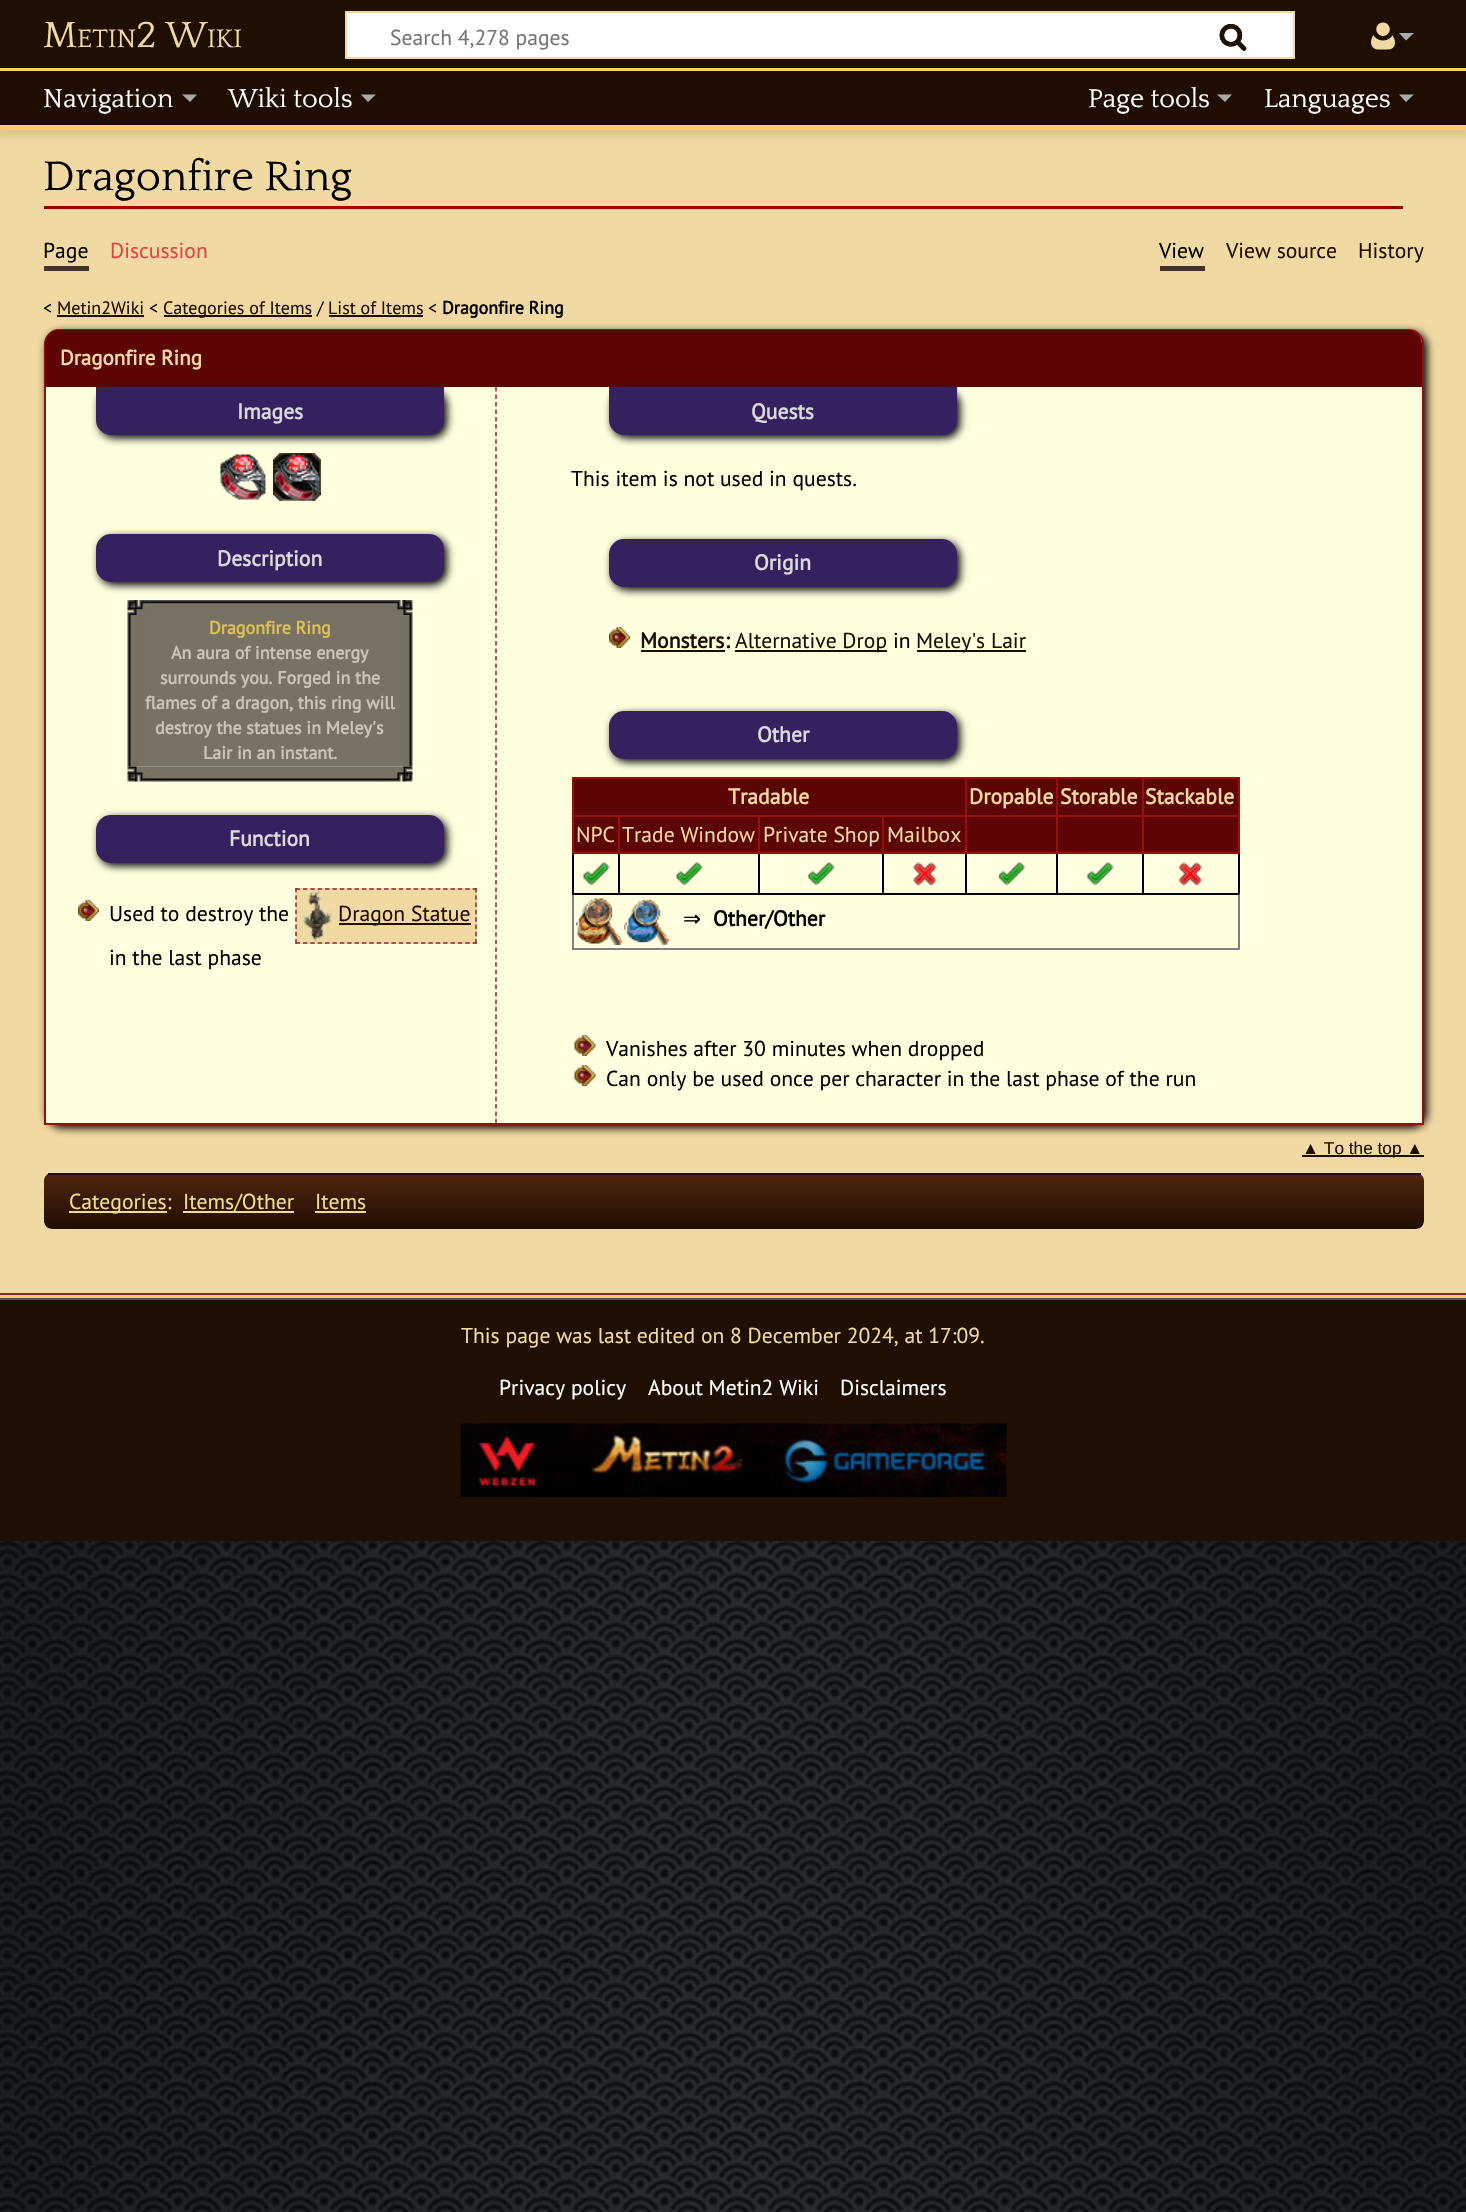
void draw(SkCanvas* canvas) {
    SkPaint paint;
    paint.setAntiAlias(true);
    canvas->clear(0xFFFFFFFF);
    canvas->drawImageRect(SkImages::DeferredFromEncodedData(SkData::MakeFromFileName("img1.png")), SkRect::MakeXYWH(0, 1541, 1466, 671), SkSamplingOptions());
    paint.setColor(0xFFF0D9A2);
    canvas->drawRect(SkRect::MakeXYWH(0, 130, 1466, 1163), paint);
    paint.setColor(0x33000000);
    paint.setMaskFilter(SkMaskFilter::MakeBlur(kNormal_SkBlurStyle, 1.5f));
    canvas->drawRect(SkRect::MakeXYWH(0, 68, 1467, 61), paint);
    paint.setMaskFilter(nullptr);
    paint.setColor(0x12000000);
    paint.setMaskFilter(SkMaskFilter::MakeBlur(kNormal_SkBlurStyle, 2));
    canvas->drawRect(SkRect::MakeXYWH(-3, 69, 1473, 68), paint);
    paint.setMaskFilter(nullptr);
    paint.setColor(0xFF1F0E02);
    canvas->drawRect(SkRect::MakeXYWH(0, 0, 1466, 68), paint);
    SkFont font1(fontMgr->matchFamilyStyle("Quattrocento", SkFontStyle::Normal()), 38);
    font1.setSubpixel(true);
    paint.setColor(0xFFF0D9A2);
    canvas->drawString("M", 43, 47, font1, paint);
    SkFont font2(fontMgr->matchFamilyStyle("Quattrocento", SkFontStyle::Normal()), 26.5f);
    font2.setSubpixel(true);
    canvas->drawString("ETIN", 77, 47, font2, paint);
    canvas->drawString("2 W", 136, 47, font1, paint);
    canvas->drawString("IKI", 207, 47, font2, paint);
    paint.setColor(0xFFFFFFFF);
    canvas->drawRect(SkRect::MakeXYWH(346, 12, 948, 46), paint);
    paint.setStyle(SkPaint::kStroke_Style);
    paint.setStrokeWidth(2);
    paint.setColor(0xFFF0D9A2);
    canvas->drawRect(SkRect::MakeXYWH(346, 12, 948, 46), paint);
    canvas->drawImageRect(SkImages::DeferredFromEncodedData(SkData::MakeFromFileName("img2.png")), SkRect::MakeXYWH(1219, 24, 28, 27), SkSamplingOptions());
    SkFont font3(fontMgr->matchFamilyStyle("PT Sans", SkFontStyle::Normal()), 21.6f);
    font3.setSubpixel(true);
    paint.setStyle(SkPaint::kFill_Style);
    paint.setColor(0xFF757575);
    canvas->drawString("Search 4,278 pages", 390, 45, font3, paint);
    canvas->drawImageRect(SkImages::DeferredFromEncodedData(SkData::MakeFromFileName("img3.png")), SkRect::MakeXYWH(1219, 24, 28, 27), SkSamplingOptions());
    canvas->drawImageRect(SkImages::DeferredFromEncodedData(SkData::MakeFromFileName("img4.png")), SkRect::MakeXYWH(1371, 22, 24, 28), SkSamplingOptions());
    paint.setColor(0xFFAAAAAA);
    canvas->drawPath(SkPathBuilder().moveTo(1414, 33).lineTo(1406, 40.5f).lineTo(1399, 33).close().detach(), paint);
    paint.setColor(0xFF1E0D00);
    canvas->drawRect(SkRect::MakeXYWH(0, 71, 1466, 54), paint);
    paint.setColor(0xFFFECE58);
    canvas->drawRect(SkRect::MakeXYWH(0, 68, 1466, 3), paint);
    canvas->drawRect(SkRect::MakeXYWH(0, 125, 1466, 5), paint);
    canvas->drawRect(SkRect::MakeXYWH(0, 1295, 1466, 3), paint);
    SkFont font4(fontMgr->matchFamilyStyle("Quattrocento", SkFontStyle::Normal()), 27);
    font4.setSubpixel(true);
    paint.setColor(0xFFFFFFFF);
    canvas->drawString("Navigation", 43, 107, font4, paint);
    paint.setColor(0xFFAAAAAA);
    canvas->drawPath(SkPathBuilder().moveTo(197, 94.5f).lineTo(190, 102).lineTo(182, 94.5f).close().detach(), paint);
    paint.setColor(0xFFFFFFFF);
    canvas->drawString("Wiki tools", 228, 107, font4, paint);
    paint.setColor(0xFFAAAAAA);
    canvas->drawPath(SkPathBuilder().moveTo(376, 94.5f).lineTo(368, 102).lineTo(361, 94.5f).close().detach(), paint);
    paint.setColor(0xFFFFFFFF);
    canvas->drawString("Page tools", 1088, 107, font4, paint);
    paint.setColor(0xFFAAAAAA);
    canvas->drawPath(SkPathBuilder().moveTo(1232, 94.5f).lineTo(1225, 102).lineTo(1217, 94.5f).close().detach(), paint);
    paint.setColor(0xFFFFFFFF);
    canvas->drawString("Languages", 1264, 107, font4, paint);
    paint.setColor(0xFFAAAAAA);
    canvas->drawPath(SkPathBuilder().moveTo(1414, 94.5f).lineTo(1406, 102).lineTo(1399, 94.5f).close().detach(), paint);
    paint.setColor(0xFF88283A);
    canvas->drawRect(SkRect::MakeXYWH(0, 1293, 1466, 2), paint);
    paint.setColor(0xFF990000);
    canvas->drawRect(SkRect::MakeXYWH(44, 206, 1359, 3), paint);
    SkFont font5(fontMgr->matchFamilyStyle("Quattrocento", SkFontStyle::Normal()), 43.25f);
    font5.setSubpixel(true);
    paint.setColor(0xFF000000);
    canvas->drawString("Dragonfire Ring", 43, 190, font5, paint);
    paint.setColor(0xFF45342C);
    canvas->drawRect(SkRect::MakeXYWH(44, 266, 45, 5), paint);
    paint.setColor(0xFF000000);
    canvas->drawString("Page", 43, 258, font3, paint);
    paint.setColor(0xFFDD4444);
    canvas->drawString("Discussion", 110, 258, font3, paint);
    paint.setColor(0xFF45342C);
    canvas->drawRect(SkRect::MakeXYWH(1160, 266, 45, 5), paint);
    paint.setColor(0xFF000000);
    canvas->drawString("View", 1159, 258, font3, paint);
    paint.setColor(0xFF1E0D00);
    canvas->drawString("View source", 1226, 258, font3, paint);
    canvas->drawString("History", 1358, 258, font3, paint);
    SkFont font6(fontMgr->matchFamilyStyle("PT Sans", SkFontStyle::Normal()), 18);
    font6.setSubpixel(true);
    paint.setColor(0xFF000000);
    canvas->drawString("<", 43, 314, font6, paint);
    paint.setColor(0xFF1E0D00);
    canvas->drawString("Metin2Wiki", 57, 314, font6, paint);
    canvas->drawRect(SkRect::MakeXYWH(57, 315, 87, 2), paint);
    paint.setColor(0xFF000000);
    canvas->drawString("<", 149, 314, font6, paint);
    paint.setColor(0xFF1E0D00);
    canvas->drawRect(SkRect::MakeXYWH(164, 315, 148, 2), paint);
    canvas->drawString("Categories of Items", 163, 314, font6, paint);
    paint.setColor(0xFF000000);
    canvas->drawString("/", 317, 314, font6, paint);
    paint.setColor(0xFF1E0D00);
    canvas->drawString("List of Items", 328, 314, font6, paint);
    canvas->drawRect(SkRect::MakeXYWH(329, 315, 94, 2), paint);
    paint.setColor(0xFF000000);
    canvas->drawString("<", 428, 314, font6, paint);
    SkFont font7(fontMgr->matchFamilyStyle("PT Sans", SkFontStyle::Bold()), 18);
    font7.setSubpixel(true);
    canvas->drawString("Dragonfire Ring", 442, 314, font7, paint);
    paint.setMaskFilter(SkMaskFilter::MakeBlur(kNormal_SkBlurStyle, 4));
    canvas->drawRoundRect(SkRect::MakeXYWH(47, 332, 1380, 796), 15, 15, paint);
    paint.setMaskFilter(nullptr);
    paint.setColor(0xFFFFFFE0);
    canvas->drawPath(SkPathBuilder().moveTo(59, 330).lineTo(1409, 330).cubicTo(1416.5f, 330, 1423, 336.5f, 1423, 344).lineTo(1423, 1124).lineTo(45, 1124).lineTo(45, 344).cubicTo(45, 336.5f, 51.5f, 330, 59, 330).close().detach(), paint);
    paint.setStyle(SkPaint::kStroke_Style);
    paint.setColor(0xFF97100D);
    canvas->drawPath(SkPathBuilder().moveTo(59, 330).lineTo(1409, 330).cubicTo(1416.5f, 330, 1423, 336.5f, 1423, 344).lineTo(1423, 1124).lineTo(45, 1124).lineTo(45, 344).cubicTo(45, 336.5f, 51.5f, 330, 59, 330).close().detach(), paint);
    paint.setStyle(SkPaint::kFill_Style);
    paint.setColor(0xFF5D0505);
    canvas->drawPath(SkPathBuilder().moveTo(59, 330).lineTo(1408, 330).cubicTo(1415.5f, 330, 1422, 336.5f, 1422, 344).lineTo(1422, 387).lineTo(45, 387).lineTo(45, 344).cubicTo(45, 336.5f, 51.5f, 330, 59, 330).close().detach(), paint);
    SkFont font8(fontMgr->matchFamilyStyle("PT Sans", SkFontStyle::Bold()), 21);
    font8.setSubpixel(true);
    paint.setColor(0xFFF0D9A2);
    canvas->drawString("Dragonfire Ring", 60, 365, font8, paint);
    paint.setStyle(SkPaint::kStroke_Style);
    paint.setStrokeWidth(1.5f);
    paint.setColor(0xFF88283A);
    paint.setPathEffect(SkDashPathEffect::Make({{4.5f, 2.97f}}, 0));
    canvas->drawPath(SkPathBuilder().moveTo(496, 387).lineTo(496, 1123.5f).detach(), paint);
    paint.setPathEffect(nullptr);
    paint.setStyle(SkPaint::kFill_Style);
    paint.setColor(0xFF000000);
    paint.setMaskFilter(SkMaskFilter::MakeBlur(kNormal_SkBlurStyle, 4));
    canvas->drawRoundRect(SkRect::MakeXYWH(99, 390, 348, 48), 15, 15, paint);
    paint.setMaskFilter(nullptr);
    paint.setColor(0xFF35215F);
    canvas->drawPath(SkPathBuilder().moveTo(97, 388).lineTo(443, 388).lineTo(443, 420).cubicTo(443, 427.5f, 436.5f, 434, 429, 434).lineTo(111, 434).cubicTo(103.5f, 434, 97, 427.5f, 97, 420).close().detach(), paint);
    paint.setStyle(SkPaint::kStroke_Style);
    paint.setStrokeWidth(2);
    canvas->drawPath(SkPathBuilder().moveTo(97, 388).lineTo(443, 388).lineTo(443, 420).cubicTo(443, 427.5f, 436.5f, 434, 429, 434).lineTo(111, 434).cubicTo(103.5f, 434, 97, 427.5f, 97, 420).close().detach(), paint);
    SkFont font9(fontMgr->matchFamilyStyle("PT Sans", SkFontStyle::Bold()), 21.6f);
    font9.setSubpixel(true);
    paint.setStyle(SkPaint::kFill_Style);
    paint.setColor(0xFFDADADA);
    canvas->drawString("Images", 237, 419, font9, paint);
    canvas->drawImageRect(SkImages::DeferredFromEncodedData(SkData::MakeFromFileName("img5.png")), SkRect::MakeXYWH(220, 454, 46, 46), SkSamplingOptions());
    canvas->drawImageRect(SkImages::DeferredFromEncodedData(SkData::MakeFromFileName("img6.png")), SkRect::MakeXYWH(273, 453, 48, 48), SkSamplingOptions());
    canvas->drawImageRect(SkImages::DeferredFromEncodedData(SkData::MakeFromFileName("img7.png")), SkRect::MakeXYWH(274, 454, 46, 46), SkSamplingOptions());
    paint.setColor(0xFF000000);
    paint.setMaskFilter(SkMaskFilter::MakeBlur(kNormal_SkBlurStyle, 4));
    canvas->drawRoundRect(SkRect::MakeXYWH(99, 537, 348, 48), 15, 15, paint);
    paint.setMaskFilter(nullptr);
    paint.setColor(0xFF35215F);
    canvas->drawRoundRect(SkRect::MakeXYWH(97, 535, 346, 46), 14, 14, paint);
    paint.setStyle(SkPaint::kStroke_Style);
    canvas->drawRoundRect(SkRect::MakeXYWH(97, 535, 346, 46), 14, 14, paint);
    paint.setStyle(SkPaint::kFill_Style);
    paint.setColor(0xFFDADADA);
    canvas->drawString("Description", 217, 566, font9, paint);
    canvas->drawImageRect(SkImages::DeferredFromEncodedData(SkData::MakeFromFileName("img8.png")), SkRect::MakeXYWH(127, 600, 286, 15), SkSamplingOptions());
    canvas->drawImageRect(SkImages::DeferredFromEncodedData(SkData::MakeFromFileName("img9.png")), SkRect::MakeXYWH(127, 615, 286, 152), SkSamplingOptions());
    paint.setColor(0xFFDEC257);
    canvas->drawString("Dragonfire Ring", 209, 634, font7, paint);
    paint.setColor(0xFFCBC5B7);
    canvas->drawString("An aura of intense energy", 171, 659, font7, paint);
    canvas->drawString("surrounds you. Forged in the", 160, 684, font7, paint);
    canvas->drawString("flames of a dragon, this ring will", 145, 709, font7, paint);
    canvas->drawString("destroy the statues in Meley's", 155, 734, font7, paint);
    canvas->drawString("Lair in an instant.", 203, 759, font7, paint);
    canvas->drawImageRect(SkImages::DeferredFromEncodedData(SkData::MakeFromFileName("img10.png")), SkRect::MakeXYWH(127, 766, 286, 16), SkSamplingOptions());
    paint.setColor(0xFF000000);
    paint.setMaskFilter(SkMaskFilter::MakeBlur(kNormal_SkBlurStyle, 4));
    canvas->drawRoundRect(SkRect::MakeXYWH(99, 818, 348, 48), 15, 15, paint);
    paint.setMaskFilter(nullptr);
    paint.setColor(0xFF35215F);
    canvas->drawRoundRect(SkRect::MakeXYWH(97, 816, 346, 46), 14, 14, paint);
    paint.setStyle(SkPaint::kStroke_Style);
    canvas->drawRoundRect(SkRect::MakeXYWH(97, 816, 346, 46), 14, 14, paint);
    paint.setStyle(SkPaint::kFill_Style);
    paint.setColor(0xFFDADADA);
    canvas->drawString("Function", 229, 846, font9, paint);
    canvas->drawImageRect(SkImages::DeferredFromEncodedData(SkData::MakeFromFileName("img11.png")), SkRect::MakeXYWH(78, 900, 21, 21), SkSamplingOptions());
    paint.setColor(0xFF000000);
    canvas->drawString("Used to destroy the", 109, 921, font3, paint);
    paint.setColor(0xFFF0D9A2);
    canvas->drawRect(SkRect::MakeXYWH(296, 888, 181, 56), paint);
    paint.setStyle(SkPaint::kStroke_Style);
    paint.setStrokeWidth(1.5f);
    paint.setColor(0xFF88283A);
    paint.setPathEffect(SkDashPathEffect::Make({{4.5f, 2.88f}}, 0));
    canvas->drawPath(SkPathBuilder().moveTo(295.5f, 889).lineTo(477, 889).detach(), paint);
    paint.setPathEffect(nullptr);
    paint.setPathEffect(SkDashPathEffect::Make({{4.5f, 2.79f}}, 0));
    canvas->drawPath(SkPathBuilder().moveTo(476, 888).lineTo(476, 943.5f).detach(), paint);
    paint.setPathEffect(nullptr);
    paint.setPathEffect(SkDashPathEffect::Make({{4.5f, 2.88f}}, 0));
    canvas->drawPath(SkPathBuilder().moveTo(295.5f, 943).lineTo(477, 943).detach(), paint);
    paint.setPathEffect(nullptr);
    paint.setPathEffect(SkDashPathEffect::Make({{4.5f, 2.79f}}, 0));
    canvas->drawPath(SkPathBuilder().moveTo(296, 888).lineTo(296, 943.5f).detach(), paint);
    paint.setPathEffect(nullptr);
    canvas->drawImageRect(SkImages::DeferredFromEncodedData(SkData::MakeFromFileName("img12.png")), SkRect::MakeXYWH(302, 890, 31, 52), SkSamplingOptions());
    paint.setStyle(SkPaint::kFill_Style);
    paint.setColor(0xFF1E0D00);
    canvas->drawRect(SkRect::MakeXYWH(339, 923, 132, 2), paint);
    canvas->drawString("Dragon Statue", 338, 921, font3, paint);
    paint.setColor(0xFF000000);
    canvas->drawString("in the last phase", 109, 965, font3, paint);
    paint.setMaskFilter(SkMaskFilter::MakeBlur(kNormal_SkBlurStyle, 4));
    canvas->drawRoundRect(SkRect::MakeXYWH(612, 390, 348, 48), 15, 15, paint);
    paint.setMaskFilter(nullptr);
    paint.setColor(0xFF35215F);
    canvas->drawPath(SkPathBuilder().moveTo(610, 388).lineTo(956, 388).lineTo(956, 420).cubicTo(956, 427.5f, 949.5f, 434, 942, 434).lineTo(624, 434).cubicTo(616.5f, 434, 610, 427.5f, 610, 420).close().detach(), paint);
    paint.setStyle(SkPaint::kStroke_Style);
    paint.setStrokeWidth(2);
    canvas->drawPath(SkPathBuilder().moveTo(610, 388).lineTo(956, 388).lineTo(956, 420).cubicTo(956, 427.5f, 949.5f, 434, 942, 434).lineTo(624, 434).cubicTo(616.5f, 434, 610, 427.5f, 610, 420).close().detach(), paint);
    paint.setStyle(SkPaint::kFill_Style);
    paint.setColor(0xFFDADADA);
    canvas->drawString("Quests", 751, 419, font9, paint);
    paint.setColor(0xFF000000);
    canvas->drawString("This item is not used in quests.", 571, 486, font3, paint);
    paint.setMaskFilter(SkMaskFilter::MakeBlur(kNormal_SkBlurStyle, 4));
    canvas->drawRoundRect(SkRect::MakeXYWH(612, 542, 348, 48), 15, 15, paint);
    paint.setMaskFilter(nullptr);
    paint.setColor(0xFF35215F);
    canvas->drawRoundRect(SkRect::MakeXYWH(610, 540, 346, 46), 14, 14, paint);
    paint.setStyle(SkPaint::kStroke_Style);
    canvas->drawRoundRect(SkRect::MakeXYWH(610, 540, 346, 46), 14, 14, paint);
    paint.setStyle(SkPaint::kFill_Style);
    paint.setColor(0xFFDADADA);
    canvas->drawString("Origin", 754, 570, font9, paint);
    canvas->drawImageRect(SkImages::DeferredFromEncodedData(SkData::MakeFromFileName("img11.png")), SkRect::MakeXYWH(609, 627, 21, 21), SkSamplingOptions());
    paint.setColor(0xFF1E0D00);
    canvas->drawString("Monsters", 640, 648, font9, paint);
    paint.setColor(0xFF000000);
    canvas->drawString(":", 725, 648, font9, paint);
    paint.setColor(0xFF1E0D00);
    canvas->drawRect(SkRect::MakeXYWH(641, 650, 84, 2), paint);
    canvas->drawRect(SkRect::MakeXYWH(735, 650, 152, 2), paint);
    canvas->drawString("Alternative Drop", 735, 648, font3, paint);
    paint.setColor(0xFF000000);
    canvas->drawString("in", 893, 648, font3, paint);
    paint.setColor(0xFF1E0D00);
    canvas->drawRect(SkRect::MakeXYWH(917, 650, 109, 2), paint);
    canvas->drawString("Meley's Lair", 916, 648, font3, paint);
    paint.setColor(0xFF000000);
    paint.setMaskFilter(SkMaskFilter::MakeBlur(kNormal_SkBlurStyle, 4));
    canvas->drawRoundRect(SkRect::MakeXYWH(612, 714, 348, 48), 15, 15, paint);
    paint.setMaskFilter(nullptr);
    paint.setColor(0xFF35215F);
    canvas->drawRoundRect(SkRect::MakeXYWH(610, 712, 346, 46), 14, 14, paint);
    paint.setStyle(SkPaint::kStroke_Style);
    canvas->drawRoundRect(SkRect::MakeXYWH(610, 712, 346, 46), 14, 14, paint);
    paint.setStyle(SkPaint::kFill_Style);
    paint.setColor(0xFFDADADA);
    canvas->drawString("Other", 757, 742, font9, paint);
    paint.setColor(0xFF808080);
    canvas->drawRect(SkRect::MakeXYWH(1238, 894, 2, 56), paint);
    canvas->drawRect(SkRect::MakeXYWH(572, 948, 667, 2), paint);
    canvas->drawRect(SkRect::MakeXYWH(572, 895, 2, 55), paint);
    paint.setColor(0xFF5D0505);
    canvas->drawRect(SkRect::MakeXYWH(574, 779, 664, 36), paint);
    paint.setColor(0xFF97100D);
    canvas->drawRect(SkRect::MakeXYWH(572, 777, 667, 2), paint);
    canvas->drawRect(SkRect::MakeXYWH(572, 815, 667, 2), paint);
    canvas->drawRect(SkRect::MakeXYWH(572, 815, 2, 39), paint);
    canvas->drawRect(SkRect::MakeXYWH(572, 777, 2, 39), paint);
    paint.setColor(0xFFF0D9A2);
    canvas->drawString("Tradable", 728, 804, font9, paint);
    paint.setColor(0xFF000000);
    canvas->drawRect(SkRect::MakeXYWH(1238, 852, 2, 42), paint);
    paint.setColor(0xFF97100D);
    canvas->drawRect(SkRect::MakeXYWH(1238, 777, 2, 77), paint);
    paint.setColor(0xFF000000);
    canvas->drawRect(SkRect::MakeXYWH(1142, 893, 97, 2), paint);
    canvas->drawRect(SkRect::MakeXYWH(1142, 852, 2, 42), paint);
    paint.setColor(0xFF97100D);
    canvas->drawRect(SkRect::MakeXYWH(1142, 852, 97, 2), paint);
    paint.setColor(0xFF5D0505);
    canvas->drawRect(SkRect::MakeXYWH(574, 817, 664, 35), paint);
    paint.setColor(0xFF97100D);
    canvas->drawRect(SkRect::MakeXYWH(1142, 777, 2, 77), paint);
    paint.setColor(0xFF000000);
    canvas->drawRect(SkRect::MakeXYWH(1056, 893, 87, 2), paint);
    canvas->drawRect(SkRect::MakeXYWH(1056, 852, 2, 42), paint);
    paint.setColor(0xFF97100D);
    canvas->drawRect(SkRect::MakeXYWH(1056, 852, 87, 2), paint);
    canvas->drawRect(SkRect::MakeXYWH(1056, 777, 2, 77), paint);
    paint.setColor(0xFF000000);
    canvas->drawRect(SkRect::MakeXYWH(965, 893, 93, 2), paint);
    canvas->drawRect(SkRect::MakeXYWH(965, 852, 2, 42), paint);
    canvas->drawRect(SkRect::MakeXYWH(882, 893, 84, 2), paint);
    canvas->drawRect(SkRect::MakeXYWH(882, 852, 2, 42), paint);
    paint.setColor(0xFF97100D);
    canvas->drawRect(SkRect::MakeXYWH(882, 852, 84, 2), paint);
    canvas->drawRect(SkRect::MakeXYWH(965, 852, 93, 2), paint);
    canvas->drawRect(SkRect::MakeXYWH(965, 777, 2, 77), paint);
    paint.setColor(0xFFF0D9A2);
    canvas->drawString("Dropable", 969, 804, font9, paint);
    canvas->drawString("Storable", 1060, 804, font9, paint);
    canvas->drawString("Stackable", 1145, 804, font9, paint);
    paint.setColor(0xFF97100D);
    canvas->drawRect(SkRect::MakeXYWH(882, 815, 2, 39), paint);
    paint.setColor(0xFF000000);
    canvas->drawRect(SkRect::MakeXYWH(758, 893, 126, 2), paint);
    canvas->drawRect(SkRect::MakeXYWH(758, 852, 2, 42), paint);
    paint.setColor(0xFF97100D);
    canvas->drawRect(SkRect::MakeXYWH(758, 852, 126, 2), paint);
    canvas->drawRect(SkRect::MakeXYWH(758, 815, 2, 39), paint);
    paint.setColor(0xFF000000);
    canvas->drawRect(SkRect::MakeXYWH(618, 893, 141, 2), paint);
    canvas->drawRect(SkRect::MakeXYWH(618, 852, 2, 42), paint);
    paint.setColor(0xFF97100D);
    canvas->drawRect(SkRect::MakeXYWH(618, 852, 141, 2), paint);
    canvas->drawRect(SkRect::MakeXYWH(618, 815, 2, 39), paint);
    paint.setColor(0xFF000000);
    canvas->drawRect(SkRect::MakeXYWH(572, 893, 48, 2), paint);
    canvas->drawRect(SkRect::MakeXYWH(572, 852, 2, 42), paint);
    paint.setColor(0xFF97100D);
    canvas->drawRect(SkRect::MakeXYWH(572, 852, 48, 2), paint);
    paint.setColor(0xFFF0D9A2);
    canvas->drawString("NPC", 576, 842, font3, paint);
    canvas->drawString("Trade Window", 622, 842, font3, paint);
    canvas->drawString("Private Shop", 763, 842, font3, paint);
    canvas->drawString("Mailbox", 887, 842, font3, paint);
    canvas->drawImageRect(SkImages::DeferredFromEncodedData(SkData::MakeFromFileName("img13.png")), SkRect::MakeXYWH(583, 862, 27, 24), SkSamplingOptions());
    canvas->drawImageRect(SkImages::DeferredFromEncodedData(SkData::MakeFromFileName("img13.png")), SkRect::MakeXYWH(676, 862, 27, 24), SkSamplingOptions());
    canvas->drawImageRect(SkImages::DeferredFromEncodedData(SkData::MakeFromFileName("img14.png")), SkRect::MakeXYWH(808, 862, 27, 24), SkSamplingOptions());
    canvas->drawImageRect(SkImages::DeferredFromEncodedData(SkData::MakeFromFileName("img15.png")), SkRect::MakeXYWH(913, 862, 24, 24), SkSamplingOptions());
    canvas->drawImageRect(SkImages::DeferredFromEncodedData(SkData::MakeFromFileName("img16.png")), SkRect::MakeXYWH(998, 862, 27, 24), SkSamplingOptions());
    canvas->drawImageRect(SkImages::DeferredFromEncodedData(SkData::MakeFromFileName("img14.png")), SkRect::MakeXYWH(1087, 862, 27, 24), SkSamplingOptions());
    canvas->drawImageRect(SkImages::DeferredFromEncodedData(SkData::MakeFromFileName("img17.png")), SkRect::MakeXYWH(1178, 862, 24, 24), SkSamplingOptions());
    canvas->drawImageRect(SkImages::DeferredFromEncodedData(SkData::MakeFromFileName("img18.png")), SkRect::MakeXYWH(576, 898, 47, 47), SkSamplingOptions());
    canvas->drawImageRect(SkImages::DeferredFromEncodedData(SkData::MakeFromFileName("img19.png")), SkRect::MakeXYWH(624, 899, 46, 46), SkSamplingOptions());
    SkFont font10(fontMgr->matchFamilyStyle("DejaVu Sans", SkFontStyle::Normal()), 21.6f);
    font10.setSubpixel(true);
    paint.setColor(0xFF000000);
    canvas->drawString("⇒", 683, 926, font10, paint);
    canvas->drawString("Other/Other", 713, 926, font9, paint);
    canvas->drawImageRect(SkImages::DeferredFromEncodedData(SkData::MakeFromFileName("img20.png")), SkRect::MakeXYWH(574, 1035, 22, 21), SkSamplingOptions());
    canvas->drawString("Vanishes after 30 minutes when dropped", 606, 1056, font3, paint);
    canvas->drawImageRect(SkImages::DeferredFromEncodedData(SkData::MakeFromFileName("img20.png")), SkRect::MakeXYWH(574, 1065, 22, 21), SkSamplingOptions());
    canvas->drawString("Can only be used once per character in the last phase of the run", 606, 1086, font3, paint);
    paint.setColor(0xFF1E0D00);
    canvas->drawRect(SkRect::MakeXYWH(1302, 1155, 122, 2), paint);
    SkFont font11(fontMgr->matchFamilyStyle("Liberation Sans", SkFontStyle::Normal()), 17.25f);
    font11.setSubpixel(true);
    canvas->drawString("▲ To the top ▲", 1302, 1154, font11, paint);
    canvas->save();
    canvas->clipPath(SkPathBuilder().moveTo(52, 1173).lineTo(1416, 1173).cubicTo(1420.5f, 1173, 1424, 1176.5f, 1424, 1181).lineTo(1424, 1221).cubicTo(1424, 1225.5f, 1420.5f, 1229, 1416, 1229).lineTo(52, 1229).cubicTo(47.5f, 1229, 44, 1225.5f, 44, 1221).lineTo(44, 1181).cubicTo(44, 1176.5f, 47.5f, 1173, 52, 1173).close().detach(), true);
    {
        const SkColor colors[] = {0xFF512410, 0xFF1F0E02};
        const float stops[] = {0, 1};
        const SkPoint ends[] = {{44, 1121}, {44, 1175}};
        paint.setShader(SkGradientShader::MakeLinear(ends, colors, stops, 2, SkTileMode::kClamp));
        paint.setAlpha(255);
    }
    canvas->drawRect(SkRect::MakeXYWH(44, 1174, 1380, 1), paint);
    {
        const SkColor colors[] = {0xFF512410, 0xFF1F0E02};
        const float stops[] = {0, 1};
        const SkPoint ends[] = {{44, 1175}, {44, 1229}};
        paint.setShader(SkGradientShader::MakeLinear(ends, colors, stops, 2, SkTileMode::kClamp));
        paint.setAlpha(255);
    }
    canvas->drawPath(SkPathBuilder().moveTo(44, 1175).lineTo(1424, 1175).lineTo(1424, 1221).cubicTo(1424, 1225.5f, 1420.5f, 1229, 1416, 1229).lineTo(52, 1229).cubicTo(47.5f, 1229, 44, 1225.5f, 44, 1221).close().detach(), paint);
    canvas->restore();
    paint.setShader(nullptr);
    paint.setColor(0xFF1F0E02);
    canvas->drawRect(SkRect::MakeXYWH(48, 1173, 1373, 2), paint);
    paint.setColor(0xFFF1DE8E);
    canvas->drawRect(SkRect::MakeXYWH(69, 1211, 98, 2), paint);
    canvas->drawString("Categories:", 69, 1209, font3, paint);
    canvas->drawRect(SkRect::MakeXYWH(183, 1211, 111, 2), paint);
    canvas->drawString("Items/Other", 183, 1209, font3, paint);
    canvas->drawString("Items", 315, 1209, font3, paint);
    canvas->drawRect(SkRect::MakeXYWH(315, 1211, 51, 2), paint);
    paint.setColor(0xFF1F0E02);
    canvas->drawRect(SkRect::MakeXYWH(0, 1300, 1466, 241), paint);
    paint.setColor(0xFF555555);
    canvas->drawRect(SkRect::MakeXYWH(0, 1298, 1466, 2), paint);
    paint.setColor(0xFFF0D9A2);
    canvas->drawString("This page was last edited on 8 December 2024, at 17:09.", 461, 1343, font3, paint);
    paint.setColor(0xFFFFFFFF);
    canvas->drawString("Privacy policy", 499, 1395, font3, paint);
    canvas->drawString("About Metin2 Wiki", 648, 1395, font3, paint);
    canvas->drawString("Disclaimers", 840, 1395, font3, paint);
    canvas->drawImageRect(SkImages::DeferredFromEncodedData(SkData::MakeFromFileName("img21.png")), SkRect::MakeXYWH(460, 1423, 547, 74), SkSamplingOptions());
}
